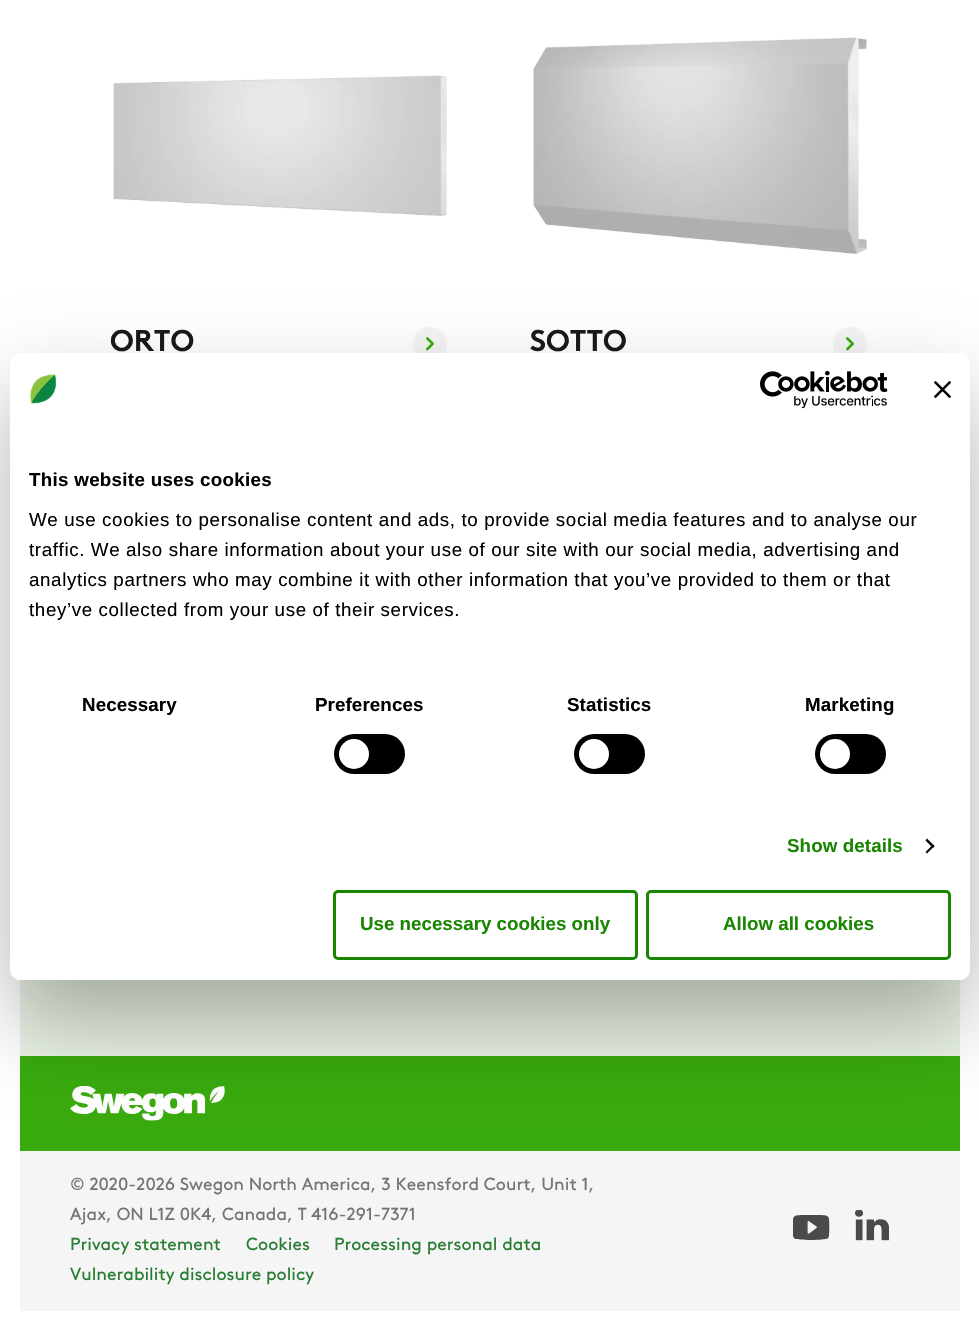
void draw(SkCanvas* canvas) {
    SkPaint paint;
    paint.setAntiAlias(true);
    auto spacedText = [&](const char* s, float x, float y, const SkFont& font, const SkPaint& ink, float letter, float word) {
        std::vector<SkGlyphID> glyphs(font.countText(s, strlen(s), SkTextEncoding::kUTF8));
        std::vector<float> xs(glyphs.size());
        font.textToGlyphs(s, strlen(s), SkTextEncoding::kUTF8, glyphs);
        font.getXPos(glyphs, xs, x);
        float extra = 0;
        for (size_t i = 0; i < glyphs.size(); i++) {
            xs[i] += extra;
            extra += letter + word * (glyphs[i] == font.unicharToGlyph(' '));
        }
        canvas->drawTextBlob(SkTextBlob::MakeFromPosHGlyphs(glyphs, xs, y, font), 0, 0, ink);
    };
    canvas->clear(0xFFFFFFFF);
    canvas->drawImageRect(SkImages::DeferredFromEncodedData(SkData::MakeFromFileName("img1.png")), SkRect::MakeXYWH(113, 75, 334, 141), SkSamplingOptions());
    SkFont font1(fontMgr->matchFamilyStyle("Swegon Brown", SkFontStyle::Bold()), 30);
    font1.setSubpixel(true);
    paint.setColor(0xFF191919);
    canvas->drawString("ORTO", 110, 351, font1, paint);
    paint.setColor(0xFFF5F5F5);
    canvas->drawCircle(430, 344, 18.5f, paint);
    paint.setStyle(SkPaint::kStroke_Style);
    paint.setStrokeWidth(3);
    paint.setColor(0xFFFFFFFF);
    canvas->drawCircle(430, 344, 18.5f, paint);
    canvas->drawImageRect(SkImages::DeferredFromEncodedData(SkData::MakeFromFileName("img2.png")), SkRect::MakeXYWH(426, 337, 8, 14), SkSamplingOptions());
    canvas->drawImageRect(SkImages::DeferredFromEncodedData(SkData::MakeFromFileName("img3.png")), SkRect::MakeXYWH(533, 37, 334, 217), SkSamplingOptions());
    paint.setStyle(SkPaint::kFill_Style);
    paint.setColor(0xFF191919);
    canvas->drawString("SOTTO", 530, 351, font1, paint);
    paint.setColor(0xFFF5F5F5);
    canvas->drawCircle(850, 344, 18.5f, paint);
    paint.setStyle(SkPaint::kStroke_Style);
    paint.setColor(0xFFFFFFFF);
    canvas->drawCircle(850, 344, 18.5f, paint);
    canvas->drawImageRect(SkImages::DeferredFromEncodedData(SkData::MakeFromFileName("img2.png")), SkRect::MakeXYWH(846, 337, 8, 14), SkSamplingOptions());
    paint.setStyle(SkPaint::kFill_Style);
    paint.setColor(0xFFE9F2E5);
    canvas->drawRect(SkRect::MakeXYWH(20, 980, 940, 76), paint);
    paint.setColor(0xFF39AA0D);
    canvas->drawRect(SkRect::MakeXYWH(20, 1056, 940, 95), paint);
    canvas->drawImageRect(SkImages::DeferredFromEncodedData(SkData::MakeFromFileName("img4.png")), SkRect::MakeXYWH(70, 1086, 155, 35), SkSamplingOptions());
    paint.setColor(0xFFF5F5F5);
    canvas->drawRect(SkRect::MakeXYWH(20, 1151, 940, 160), paint);
    SkFont font2(fontMgr->matchFamilyStyle("Swegon Brown", SkFontStyle::Normal()), 17.5f);
    font2.setSubpixel(true);
    paint.setColor(0xFF737473);
    canvas->drawString("© 2020-2026 Swegon North America, 3 Keensford Court, Unit 1,", 70, 1190, font2, paint);
    canvas->drawString("Ajax, ON L1Z 0K4, Canada, T 416-291-7371", 70, 1220, font2, paint);
    paint.setColor(0xFF277D32);
    canvas->drawString("Privacy statement", 70, 1250, font2, paint);
    canvas->drawString("Cookies", 246, 1250, font2, paint);
    canvas->drawString("Processing personal data", 334, 1250, font2, paint);
    canvas->drawString("Vulnerability disclosure policy", 70, 1280, font2, paint);
    canvas->drawImageRect(SkImages::DeferredFromEncodedData(SkData::MakeFromFileName("img5.png")), SkRect::MakeXYWH(793, 1215, 37, 25), SkSamplingOptions());
    canvas->drawImageRect(SkImages::DeferredFromEncodedData(SkData::MakeFromFileName("img6.png")), SkRect::MakeXYWH(855, 1210, 34, 31), SkSamplingOptions());
    paint.setColor(0x4D000000);
    paint.setMaskFilter(SkMaskFilter::MakeBlur(kNormal_SkBlurStyle, 42.5f));
    canvas->drawRoundRect(SkRect::MakeXYWH(10, 393, 960, 627), 10, 10, paint);
    paint.setMaskFilter(nullptr);
    paint.setColor(0xFFFFFFFF);
    canvas->drawRoundRect(SkRect::MakeXYWH(10, 353, 960, 627), 10, 10, paint);
    canvas->drawImageRect(SkImages::DeferredFromEncodedData(SkData::MakeFromFileName("img7.png")), SkRect::MakeXYWH(30, 374, 27, 30), SkSamplingOptions());
    canvas->drawImageRect(SkImages::DeferredFromEncodedData(SkData::MakeFromFileName("img8.png")), SkRect::MakeXYWH(760, 371, 128, 38), SkSamplingOptions());
    canvas->drawImageRect(SkImages::DeferredFromEncodedData(SkData::MakeFromFileName("img9.png")), SkRect::MakeXYWH(934, 381, 17, 18), SkSamplingOptions());
    SkFont font3(fontMgr->matchFamilyStyle("Liberation Sans", SkFontStyle::Bold()), 18.75f);
    font3.setSubpixel(true);
    paint.setColor(0xFF000000);
    spacedText("This website uses cookies", 29, 486, font3, paint, 0.3f, 0);
    SkFont font4(fontMgr->matchFamilyStyle("Liberation Sans", SkFontStyle::Normal()), 18.75f);
    font4.setSubpixel(true);
    spacedText("We use cookies to personalise content and ads, to provide social media features and to analyse our", 29, 526, font4, paint, 0.62f, 0);
    spacedText("traffic. We also share information about your use of our site with our social media, advertising and", 29, 556, font4, paint, 0.62f, 0);
    spacedText("analytics partners who may combine it with other information that you’ve provided to them or that", 29, 586, font4, paint, 0.62f, 0);
    spacedText("they’ve collected from your use of their services.", 29, 616, font4, paint, 0.62f, 0);
    spacedText("Necessary", 82, 711, font3, paint, 0.1f, 0);
    spacedText("Preferences", 315, 711, font3, paint, 0.1f, 0);
    canvas->drawRoundRect(SkRect::MakeXYWH(334, 734, 71, 40), 20, 20, paint);
    paint.setColor(0xFFFFFFFF);
    canvas->drawCircle(354, 754, 15, paint);
    paint.setColor(0xFF000000);
    spacedText("Statistics", 567, 711, font3, paint, 0.1f, 0);
    canvas->drawRoundRect(SkRect::MakeXYWH(574, 734, 71, 40), 20, 20, paint);
    paint.setColor(0xFFFFFFFF);
    canvas->drawCircle(594, 754, 15, paint);
    paint.setColor(0xFF000000);
    spacedText("Marketing", 805, 711, font3, paint, 0.1f, 0);
    canvas->drawRoundRect(SkRect::MakeXYWH(815, 734, 71, 40), 20, 20, paint);
    paint.setColor(0xFFFFFFFF);
    canvas->drawCircle(835, 754, 15, paint);
    paint.setColor(0xFF188600);
    spacedText("Show details", 787, 852, font3, paint, 0.1f, 0);
    paint.setColor(0xFF000000);
    canvas->drawPath(SkPathBuilder().moveTo(927, 838.5f).lineTo(934.5f, 846).lineTo(933, 848).lineTo(925.5f, 840.5f).close().detach(), paint);
    canvas->drawPath(SkPathBuilder().moveTo(933, 844.5f).lineTo(934.5f, 846).lineTo(927, 853.5f).lineTo(925.5f, 852).close().detach(), paint);
    canvas->save();
    canvas->clipPath(SkPathBuilder().moveTo(20, 353).lineTo(960, 353).cubicTo(965.5f, 353, 970, 357.5f, 970, 363).lineTo(970, 970).cubicTo(970, 975.5f, 965.5f, 980, 960, 980).lineTo(20, 980).cubicTo(14.5f, 980, 10, 975.5f, 10, 970).lineTo(10, 363).cubicTo(10, 357.5f, 14.5f, 353, 20, 353).close().detach(), true);
    paint.setColor(0xFFFFFFFF);
    canvas->drawRect(SkRect::MakeXYWH(10, 979, 960, 1), paint);
    canvas->restore();
    paint.setStyle(SkPaint::kStroke_Style);
    paint.setColor(0xFF188600);
    canvas->drawRoundRect(SkRect::MakeXYWH(334.5f, 891.5f, 302, 67), 3.5f, 3.5f, paint);
    paint.setStyle(SkPaint::kFill_Style);
    canvas->drawString("Use necessary cookies only", 360, 930, font3, paint);
    paint.setStyle(SkPaint::kStroke_Style);
    canvas->drawRoundRect(SkRect::MakeXYWH(647.5f, 891.5f, 302, 67), 3.5f, 3.5f, paint);
    paint.setStyle(SkPaint::kFill_Style);
    canvas->drawString("Allow all cookies", 723, 930, font3, paint);
}
